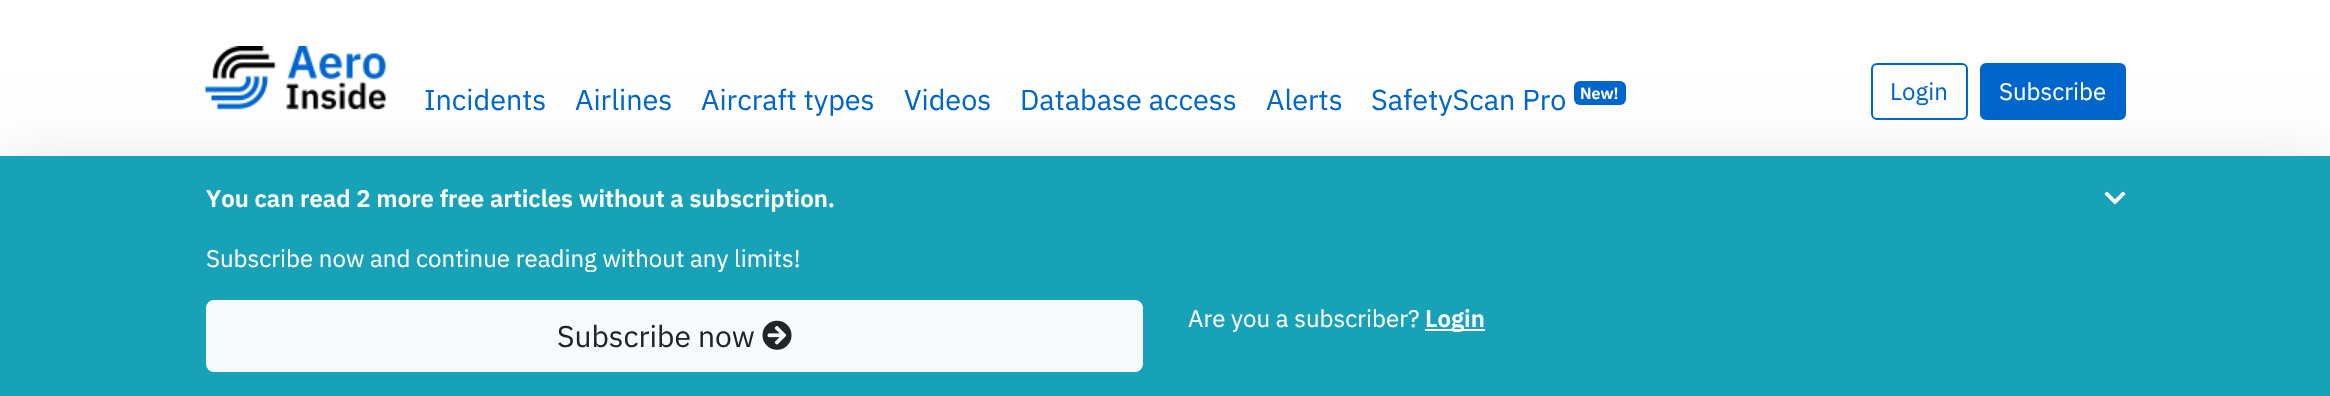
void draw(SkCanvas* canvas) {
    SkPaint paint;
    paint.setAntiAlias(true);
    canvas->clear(0xFFFFFFFF);
    canvas->drawImageRect(SkImages::DeferredFromEncodedData(SkData::MakeFromFileName("img1.png")), SkRect::MakeXYWH(205, 46, 181, 64), SkSamplingOptions());
    SkFont font1(fontMgr->matchFamilyStyle("IBM Plex Sans", SkFontStyle::Normal()), 28.75f);
    font1.setSubpixel(true);
    paint.setColor(0xFF0066CC);
    canvas->drawString("Incidents", 424, 110, font1, paint);
    canvas->drawString("Airlines", 575, 110, font1, paint);
    canvas->drawString("Aircraft types", 701, 110, font1, paint);
    canvas->drawString("Videos", 904, 110, font1, paint);
    canvas->drawString("Database access", 1020, 110, font1, paint);
    canvas->drawString("Alerts", 1266, 110, font1, paint);
    canvas->drawString("SafetyScan Pro", 1371, 110, font1, paint);
    canvas->drawRoundRect(SkRect::MakeXYWH(1574, 81, 52, 24), 6, 6, paint);
    SkFont font2(fontMgr->matchFamilyStyle("IBM Plex Sans", SkFontStyle(600, SkFontStyle::kNormal_Width, SkFontStyle::kUpright_Slant)), 16);
    font2.setSubpixel(true);
    paint.setColor(0xFFFFFFFF);
    canvas->drawString("New!", 1580, 99, font2, paint);
    paint.setStyle(SkPaint::kStroke_Style);
    paint.setStrokeWidth(2);
    paint.setColor(0xFF0066CC);
    canvas->drawRoundRect(SkRect::MakeXYWH(1872, 64, 95, 55), 5, 5, paint);
    SkFont font3(fontMgr->matchFamilyStyle("IBM Plex Sans", SkFontStyle::Normal()), 24);
    font3.setSubpixel(true);
    paint.setStyle(SkPaint::kFill_Style);
    canvas->drawString("Login", 1890, 100, font3, paint);
    canvas->drawRoundRect(SkRect::MakeXYWH(1981, 64, 144, 55), 5, 5, paint);
    paint.setStyle(SkPaint::kStroke_Style);
    canvas->drawRoundRect(SkRect::MakeXYWH(1981, 64, 144, 55), 5, 5, paint);
    paint.setStyle(SkPaint::kFill_Style);
    paint.setColor(0xFFFFFFFF);
    canvas->drawString("Subscribe", 1999, 100, font3, paint);
    paint.setColor(0x2E000000);
    paint.setMaskFilter(SkMaskFilter::MakeBlur(kNormal_SkBlurStyle, 36));
    canvas->drawRect(SkRect::MakeXYWH(0, 180, 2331, 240), paint);
    paint.setMaskFilter(nullptr);
    paint.setColor(0xFF17A2B8);
    canvas->drawRect(SkRect::MakeXYWH(0, 156, 2330, 240), paint);
    SkFont font4(fontMgr->matchFamilyStyle("IBM Plex Sans", SkFontStyle(600, SkFontStyle::kNormal_Width, SkFontStyle::kUpright_Slant)), 24);
    font4.setSubpixel(true);
    paint.setColor(0xFFFFFFFF);
    canvas->drawString("You can read 2 more free articles without a subscription.", 206, 207, font4, paint);
    canvas->drawString("Subscribe now and continue reading without any limits!", 206, 267, font3, paint);
    canvas->drawImageRect(SkImages::DeferredFromEncodedData(SkData::MakeFromFileName("img2.png")), SkRect::MakeXYWH(2104, 191, 22, 14), SkSamplingOptions());
    canvas->drawString("Are you a subscriber?", 1188, 327, font3, paint);
    canvas->drawRect(SkRect::MakeXYWH(1425, 329, 60, 2), paint);
    canvas->drawString("Login", 1425, 327, font4, paint);
    paint.setColor(0xFFF8F9FA);
    canvas->drawRoundRect(SkRect::MakeXYWH(207, 301, 935, 70), 7, 7, paint);
    paint.setStyle(SkPaint::kStroke_Style);
    canvas->drawRoundRect(SkRect::MakeXYWH(207, 301, 935, 70), 7, 7, paint);
    SkFont font5(fontMgr->matchFamilyStyle("IBM Plex Sans", SkFontStyle::Normal()), 30);
    font5.setSubpixel(true);
    paint.setStyle(SkPaint::kFill_Style);
    paint.setColor(0xFF212529);
    canvas->drawString("Subscribe now", 557, 347, font5, paint);
    canvas->drawImageRect(SkImages::DeferredFromEncodedData(SkData::MakeFromFileName("img3.png")), SkRect::MakeXYWH(762, 320, 30, 30), SkSamplingOptions());
}
